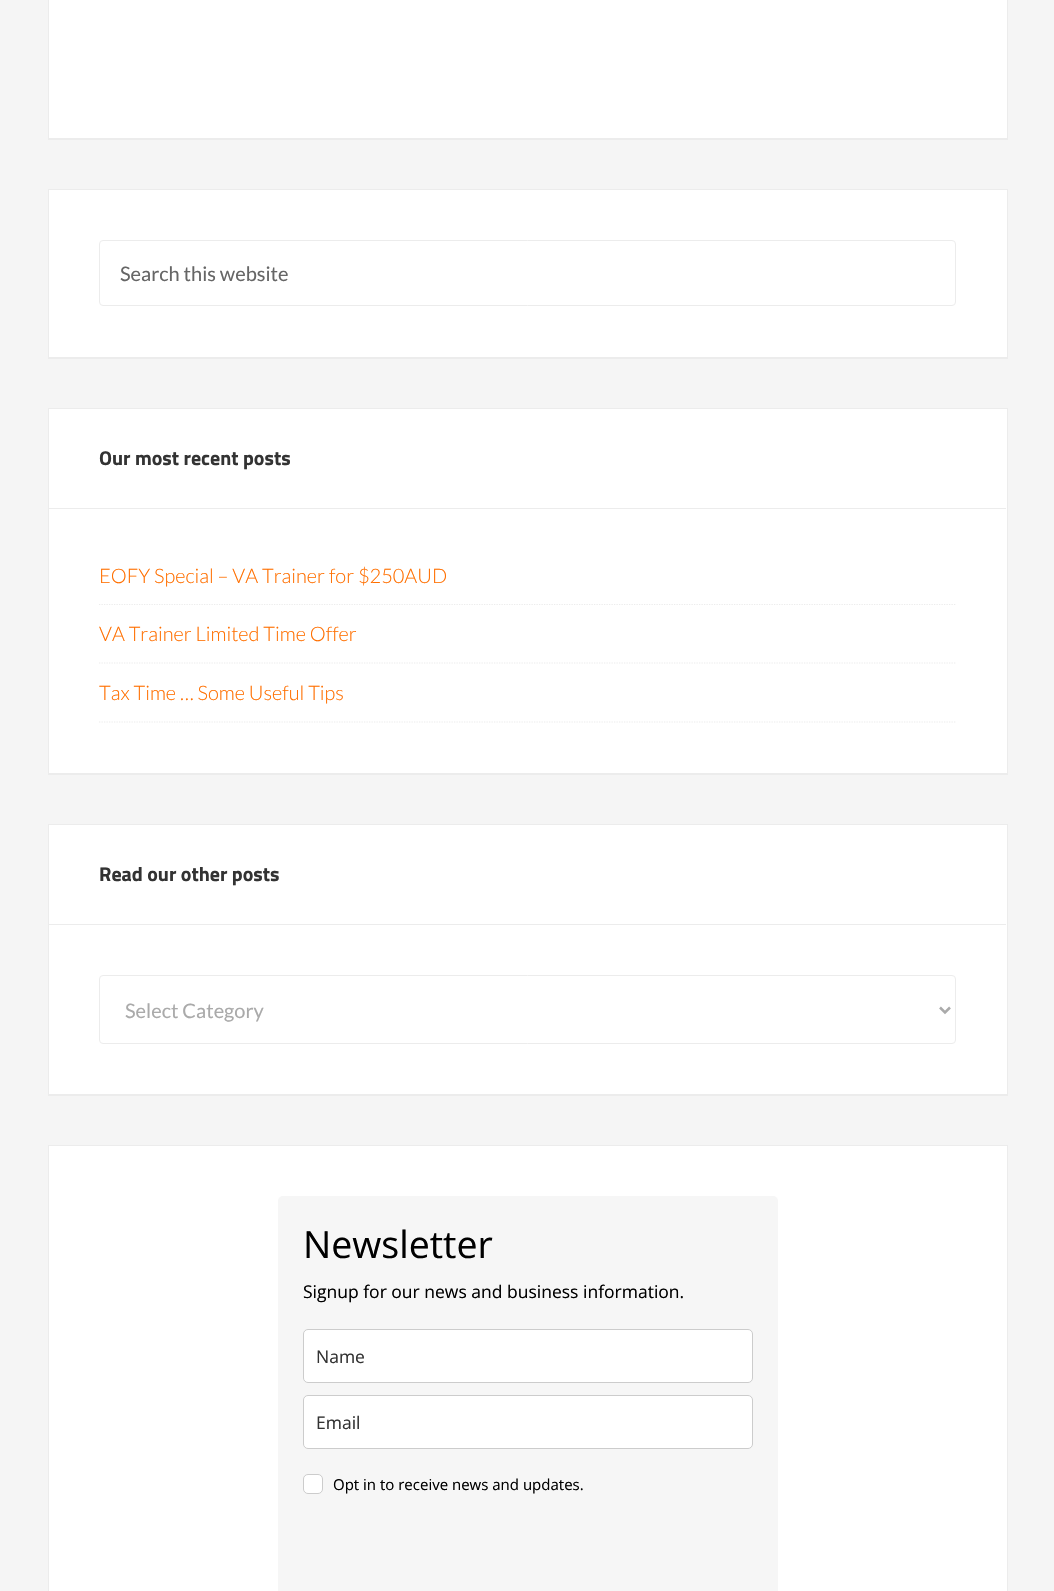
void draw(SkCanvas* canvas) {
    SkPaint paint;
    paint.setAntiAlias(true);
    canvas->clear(0xFFF5F5F5);
    paint.setColor(0xFFECECEC);
    canvas->drawPath(SkPathBuilder().moveTo(48, 139).lineTo(48, 140).lineTo(1008, 140).lineTo(1008, -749).lineTo(1008, 139).close().detach(), paint);
    paint.setColor(0xFFFFFFFF);
    canvas->drawRect(SkRect::MakeXYWH(48.5f, -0.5f, 959, 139), paint);
    paint.setStyle(SkPaint::kStroke_Style);
    paint.setStrokeWidth(1);
    paint.setColor(0xFFECECEC);
    canvas->drawRect(SkRect::MakeXYWH(48.5f, -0.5f, 959, 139), paint);
    paint.setStyle(SkPaint::kFill_Style);
    canvas->drawPath(SkPathBuilder().moveTo(48, 358).lineTo(48, 359).lineTo(1008, 359).lineTo(1008, 190).lineTo(1008, 358).close().detach(), paint);
    paint.setColor(0xFFFFFFFF);
    canvas->drawRect(SkRect::MakeXYWH(48.5f, 189.5f, 959, 168), paint);
    paint.setStyle(SkPaint::kStroke_Style);
    paint.setColor(0xFFECECEC);
    canvas->drawRect(SkRect::MakeXYWH(48.5f, 189.5f, 959, 168), paint);
    canvas->drawRoundRect(SkRect::MakeXYWH(99.5f, 240.5f, 856, 65), 3.5f, 3.5f, paint);
    SkFont font1(fontMgr->matchFamilyStyle("Lato", SkFontStyle::Normal()), 20);
    font1.setSubpixel(true);
    paint.setStyle(SkPaint::kFill_Style);
    paint.setColor(0xFF666666);
    canvas->drawString("Search this website", 120, 281, font1, paint);
    paint.setColor(0xFFECECEC);
    canvas->drawPath(SkPathBuilder().moveTo(48, 774).lineTo(48, 775).lineTo(1008, 775).lineTo(1008, 409).lineTo(1008, 774).close().detach(), paint);
    paint.setColor(0xFFFFFFFF);
    canvas->drawRect(SkRect::MakeXYWH(48.5f, 408.5f, 959, 365), paint);
    paint.setStyle(SkPaint::kStroke_Style);
    paint.setColor(0xFFECECEC);
    canvas->drawRect(SkRect::MakeXYWH(48.5f, 408.5f, 959, 365), paint);
    paint.setStyle(SkPaint::kFill_Style);
    canvas->drawRect(SkRect::MakeXYWH(49, 508, 957, 1), paint);
    SkFont font2(fontMgr->matchFamilyStyle("Titillium Web", SkFontStyle::Bold()), 20);
    font2.setSubpixel(true);
    paint.setColor(0xFF333333);
    canvas->drawString("Our most recent posts", 99, 465, font2, paint);
    paint.setStyle(SkPaint::kStroke_Style);
    paint.setStrokeWidth(1.2f);
    paint.setColor(0xFFECECEC);
    paint.setPathEffect(SkDashPathEffect::Make({{1.25f, 1.25f}}, 0));
    canvas->drawPath(SkPathBuilder().moveTo(99, 604.5f).lineTo(956, 604.5f).detach(), paint);
    paint.setPathEffect(nullptr);
    SkFont font3(fontMgr->matchFamilyStyle("Lato", SkFontStyle(300, SkFontStyle::kNormal_Width, SkFontStyle::kUpright_Slant)), 20);
    font3.setSubpixel(true);
    paint.setStyle(SkPaint::kFill_Style);
    paint.setColor(0xFFFF6F00);
    canvas->drawString("EOFY Special – VA Trainer for $250AUD", 99, 583, font3, paint);
    paint.setStyle(SkPaint::kStroke_Style);
    paint.setColor(0xFFECECEC);
    paint.setPathEffect(SkDashPathEffect::Make({{1.25f, 1.25f}}, 0));
    canvas->drawPath(SkPathBuilder().moveTo(99, 663).lineTo(956, 663).detach(), paint);
    paint.setPathEffect(nullptr);
    paint.setStyle(SkPaint::kFill_Style);
    paint.setColor(0xFFFF6F00);
    canvas->drawString("VA Trainer Limited Time Offer", 99, 641, font3, paint);
    paint.setStyle(SkPaint::kStroke_Style);
    paint.setColor(0xFFECECEC);
    paint.setPathEffect(SkDashPathEffect::Make({{1.25f, 1.25f}}, 0));
    canvas->drawPath(SkPathBuilder().moveTo(99, 722).lineTo(956, 722).detach(), paint);
    paint.setPathEffect(nullptr);
    paint.setStyle(SkPaint::kFill_Style);
    paint.setColor(0xFFFF6F00);
    canvas->drawString("Tax Time … Some Useful Tips", 99, 700, font3, paint);
    paint.setColor(0xFFECECEC);
    canvas->drawPath(SkPathBuilder().moveTo(48, 1095).lineTo(48, 1096).lineTo(1008, 1096).lineTo(1008, 825).lineTo(1008, 1095).close().detach(), paint);
    paint.setColor(0xFFFFFFFF);
    canvas->drawRect(SkRect::MakeXYWH(48.5f, 824.5f, 959, 270), paint);
    paint.setStyle(SkPaint::kStroke_Style);
    paint.setStrokeWidth(1);
    paint.setColor(0xFFECECEC);
    canvas->drawRect(SkRect::MakeXYWH(48.5f, 824.5f, 959, 270), paint);
    paint.setStyle(SkPaint::kFill_Style);
    canvas->drawRect(SkRect::MakeXYWH(49, 924, 957, 1), paint);
    paint.setColor(0xFF333333);
    canvas->drawString("Read our other posts", 99, 881, font2, paint);
    paint.setStyle(SkPaint::kStroke_Style);
    paint.setColor(0xFFECECEC);
    canvas->drawRoundRect(SkRect::MakeXYWH(99.5f, 975.5f, 856, 68), 3.5f, 3.5f, paint);
    paint.setStrokeWidth(2.5f);
    paint.setColor(0xFFAAAAAA);
    canvas->drawPath(SkPathBuilder().moveTo(940, 1007.5f).lineTo(945, 1012.5f).lineTo(950, 1007.5f).detach(), paint);
    paint.setStyle(SkPaint::kFill_Style);
    canvas->drawString("Select Category", 125, 1018, font1, paint);
    paint.setColor(0xFFFFFFFF);
    canvas->drawRect(SkRect::MakeXYWH(48.5f, 1145.5f, 959, 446), paint);
    paint.setStyle(SkPaint::kStroke_Style);
    paint.setStrokeWidth(1);
    paint.setColor(0xFFECECEC);
    canvas->drawRect(SkRect::MakeXYWH(48.5f, 1145.5f, 959, 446), paint);
    paint.setStyle(SkPaint::kFill_Style);
    paint.setColor(0xFFF6F6F6);
    canvas->drawRoundRect(SkRect::MakeXYWH(278, 1196, 500, 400), 5, 5, paint);
    SkFont font4(fontMgr->matchFamilyStyle("Open Sans", SkFontStyle::Normal()), 37.5f);
    font4.setSubpixel(true);
    paint.setColor(0xFF000000);
    canvas->drawString("Newsletter", 303, 1258, font4, paint);
    SkFont font5(fontMgr->matchFamilyStyle("Open Sans", SkFontStyle::Normal()), 17.5f);
    font5.setSubpixel(true);
    canvas->drawString("Signup for our news and business information.", 303, 1298, font5, paint);
    paint.setColor(0xFFFFFFFF);
    canvas->drawRoundRect(SkRect::MakeXYWH(303.5f, 1329.5f, 449, 53), 4.5f, 4.5f, paint);
    paint.setStyle(SkPaint::kStroke_Style);
    paint.setColor(0xFFCCCCCC);
    canvas->drawRoundRect(SkRect::MakeXYWH(303.5f, 1329.5f, 449, 53), 4.5f, 4.5f, paint);
    paint.setStyle(SkPaint::kFill_Style);
    paint.setColor(0xFF333333);
    canvas->drawString("Name", 316, 1363, font5, paint);
    paint.setColor(0xFFFFFFFF);
    canvas->drawRoundRect(SkRect::MakeXYWH(303.5f, 1395.5f, 449, 53), 4.5f, 4.5f, paint);
    paint.setStyle(SkPaint::kStroke_Style);
    paint.setColor(0xFFCCCCCC);
    canvas->drawRoundRect(SkRect::MakeXYWH(303.5f, 1395.5f, 449, 53), 4.5f, 4.5f, paint);
    paint.setStyle(SkPaint::kFill_Style);
    paint.setColor(0xFF333333);
    canvas->drawString("Email", 316, 1429, font5, paint);
    paint.setColor(0xFFFFFFFF);
    canvas->drawRoundRect(SkRect::MakeXYWH(303.5f, 1474.5f, 19, 19), 4.5f, 4.5f, paint);
    paint.setStyle(SkPaint::kStroke_Style);
    paint.setColor(0xFFCCCCCC);
    canvas->drawRoundRect(SkRect::MakeXYWH(303.5f, 1474.5f, 19, 19), 4.5f, 4.5f, paint);
    SkFont font6(fontMgr->matchFamilyStyle("Open Sans", SkFontStyle::Normal()), 15);
    font6.setSubpixel(true);
    paint.setStyle(SkPaint::kFill_Style);
    paint.setColor(0xFF000000);
    canvas->drawString("Opt in to receive news and updates.", 333, 1490, font6, paint);
}
